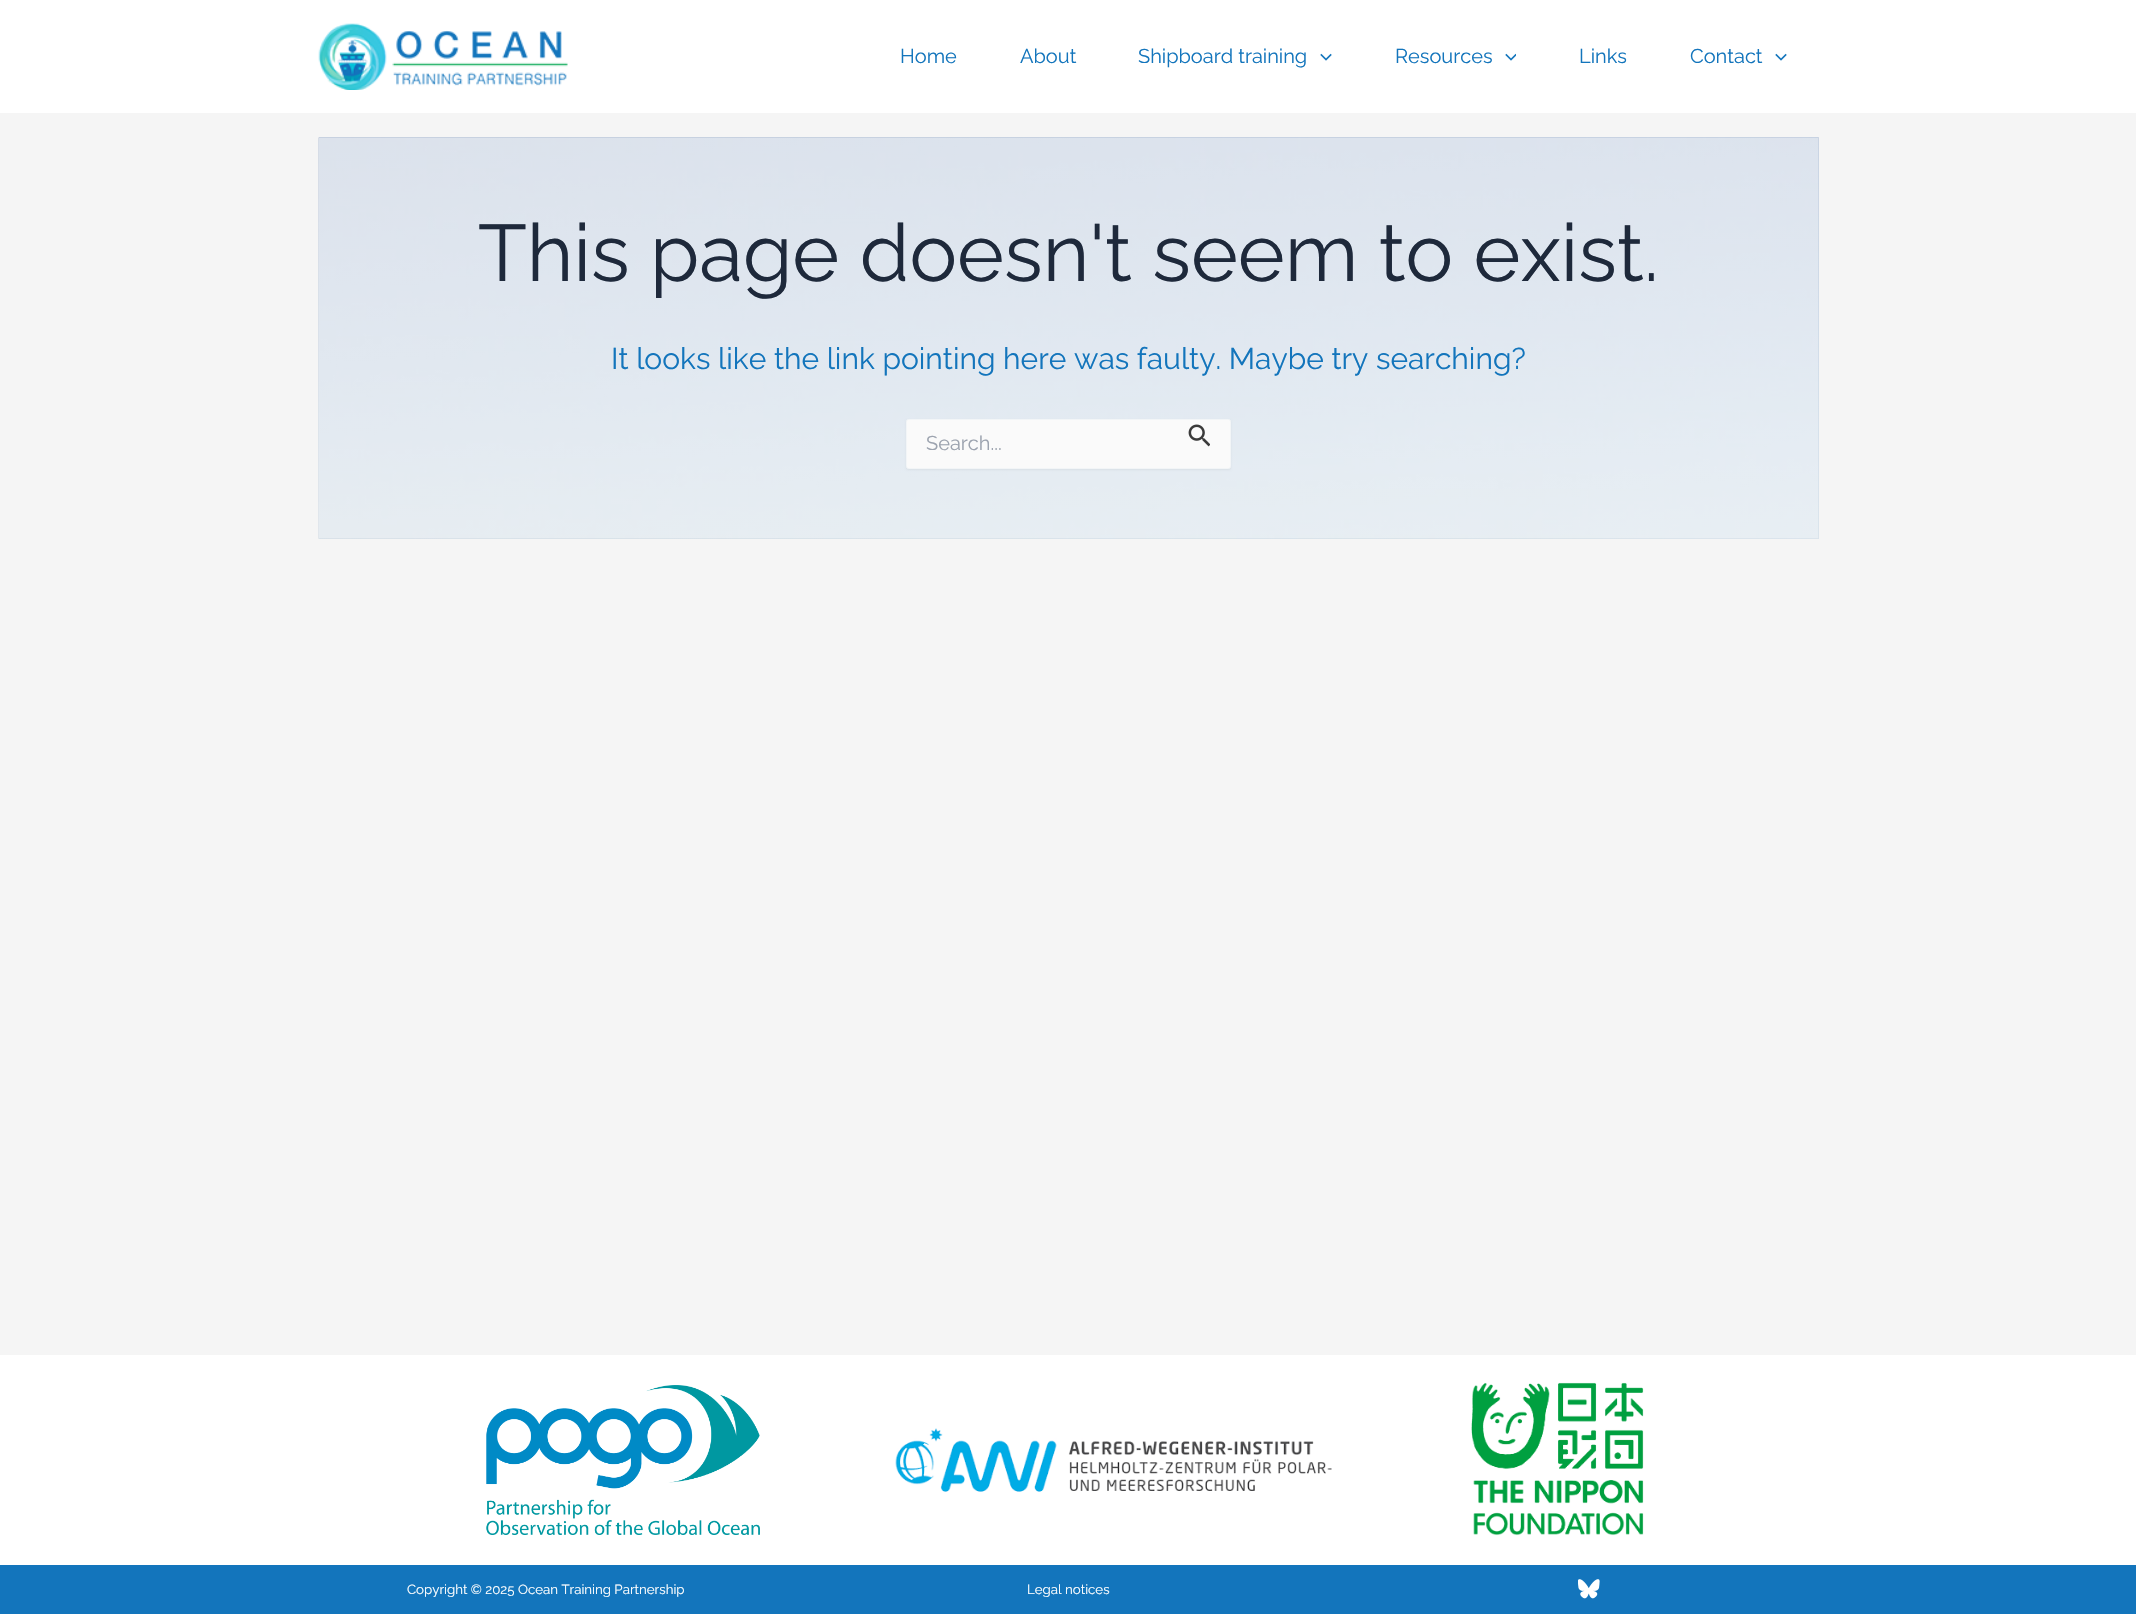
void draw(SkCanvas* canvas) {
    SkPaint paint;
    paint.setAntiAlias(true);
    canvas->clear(0xFFF5F5F5);
    paint.setColor(0xFFFFFFFF);
    canvas->drawRect(SkRect::MakeXYWH(0, 0, 2136, 113), paint);
    canvas->drawImageRect(SkImages::DeferredFromEncodedData(SkData::MakeFromFileName("img1.png")), SkRect::MakeXYWH(318, 23, 250, 67), SkSamplingOptions());
    SkFont font1(fontMgr->matchFamilyStyle("Raleway", SkFontStyle::Normal()), 20);
    font1.setSubpixel(true);
    paint.setColor(0xFF1375BC);
    canvas->drawString("Home", 900, 63, font1, paint);
    canvas->drawString("About", 1020, 63, font1, paint);
    canvas->drawString("Shipboard training", 1138, 63, font1, paint);
    canvas->drawImageRect(SkImages::DeferredFromEncodedData(SkData::MakeFromFileName("img2.png")), SkRect::MakeXYWH(1320, 53, 12, 8), SkSamplingOptions());
    canvas->drawString("Resources", 1395, 63, font1, paint);
    canvas->drawImageRect(SkImages::DeferredFromEncodedData(SkData::MakeFromFileName("img3.png")), SkRect::MakeXYWH(1505, 53, 11, 8), SkSamplingOptions());
    canvas->drawString("Links", 1579, 63, font1, paint);
    canvas->drawString("Contact", 1690, 63, font1, paint);
    canvas->drawImageRect(SkImages::DeferredFromEncodedData(SkData::MakeFromFileName("img2.png")), SkRect::MakeXYWH(1775, 53, 12, 8), SkSamplingOptions());
    canvas->drawImageRect(SkImages::DeferredFromEncodedData(SkData::MakeFromFileName("img4.png")), SkRect::MakeXYWH(318, 137, 1501, 402), SkSamplingOptions());
    SkFont font2(fontMgr->matchFamilyStyle("Raleway", SkFontStyle::Normal()), 80);
    font2.setSubpixel(true);
    paint.setColor(0xFF1E293B);
    canvas->drawString("This page doesn't seem to exist.", 478, 281, font2, paint);
    SkFont font3(fontMgr->matchFamilyStyle("Raleway", SkFontStyle::Normal()), 30);
    font3.setSubpixel(true);
    paint.setColor(0xFF1375BC);
    canvas->drawString("It looks like the link pointing here was faulty. Maybe try searching?", 611, 369, font3, paint);
    paint.setColor(0x0D000000);
    paint.setMaskFilter(SkMaskFilter::MakeBlur(kNormal_SkBlurStyle, 1));
    canvas->drawRoundRect(SkRect::MakeXYWH(906, 420, 325, 50), 2.5f, 2.5f, paint);
    paint.setMaskFilter(nullptr);
    paint.setColor(0xFFFAFAFA);
    canvas->drawRoundRect(SkRect::MakeXYWH(906.5f, 419.5f, 324, 49), 2, 2, paint);
    paint.setStyle(SkPaint::kStroke_Style);
    paint.setStrokeWidth(1);
    paint.setColor(0xFFF2F5F7);
    canvas->drawRoundRect(SkRect::MakeXYWH(906.5f, 419.5f, 324, 49), 2, 2, paint);
    paint.setStyle(SkPaint::kFill_Style);
    paint.setColor(0xFF9CA3AF);
    canvas->drawString("Search...", 926, 450, font1, paint);
    canvas->drawImageRect(SkImages::DeferredFromEncodedData(SkData::MakeFromFileName("img5.png")), SkRect::MakeXYWH(1188, 424, 22, 23), SkSamplingOptions());
    paint.setColor(0xFFFFFFFF);
    canvas->drawRect(SkRect::MakeXYWH(0, 1355, 2136, 210), paint);
    canvas->drawImageRect(SkImages::DeferredFromEncodedData(SkData::MakeFromFileName("img6.png")), SkRect::MakeXYWH(486, 1385, 274, 150), SkSamplingOptions());
    canvas->drawImageRect(SkImages::DeferredFromEncodedData(SkData::MakeFromFileName("img7.png")), SkRect::MakeXYWH(895, 1428, 437, 64), SkSamplingOptions());
    canvas->drawImageRect(SkImages::DeferredFromEncodedData(SkData::MakeFromFileName("img8.png")), SkRect::MakeXYWH(1471, 1382, 173, 154), SkSamplingOptions());
    paint.setColor(0xFF1375BC);
    canvas->drawRect(SkRect::MakeXYWH(0, 1565, 2136, 49), paint);
    SkFont font4(fontMgr->matchFamilyStyle("Raleway", SkFontStyle::Normal()), 13.3f);
    font4.setSubpixel(true);
    paint.setColor(0xFFFFFFFF);
    canvas->drawString("Copyright © 2025 Ocean Training Partnership", 407, 1594, font4, paint);
    canvas->drawString("Legal notices", 1027, 1594, font4, paint);
    canvas->drawImageRect(SkImages::DeferredFromEncodedData(SkData::MakeFromFileName("img9.png")), SkRect::MakeXYWH(1578, 1579, 22, 20), SkSamplingOptions());
}
